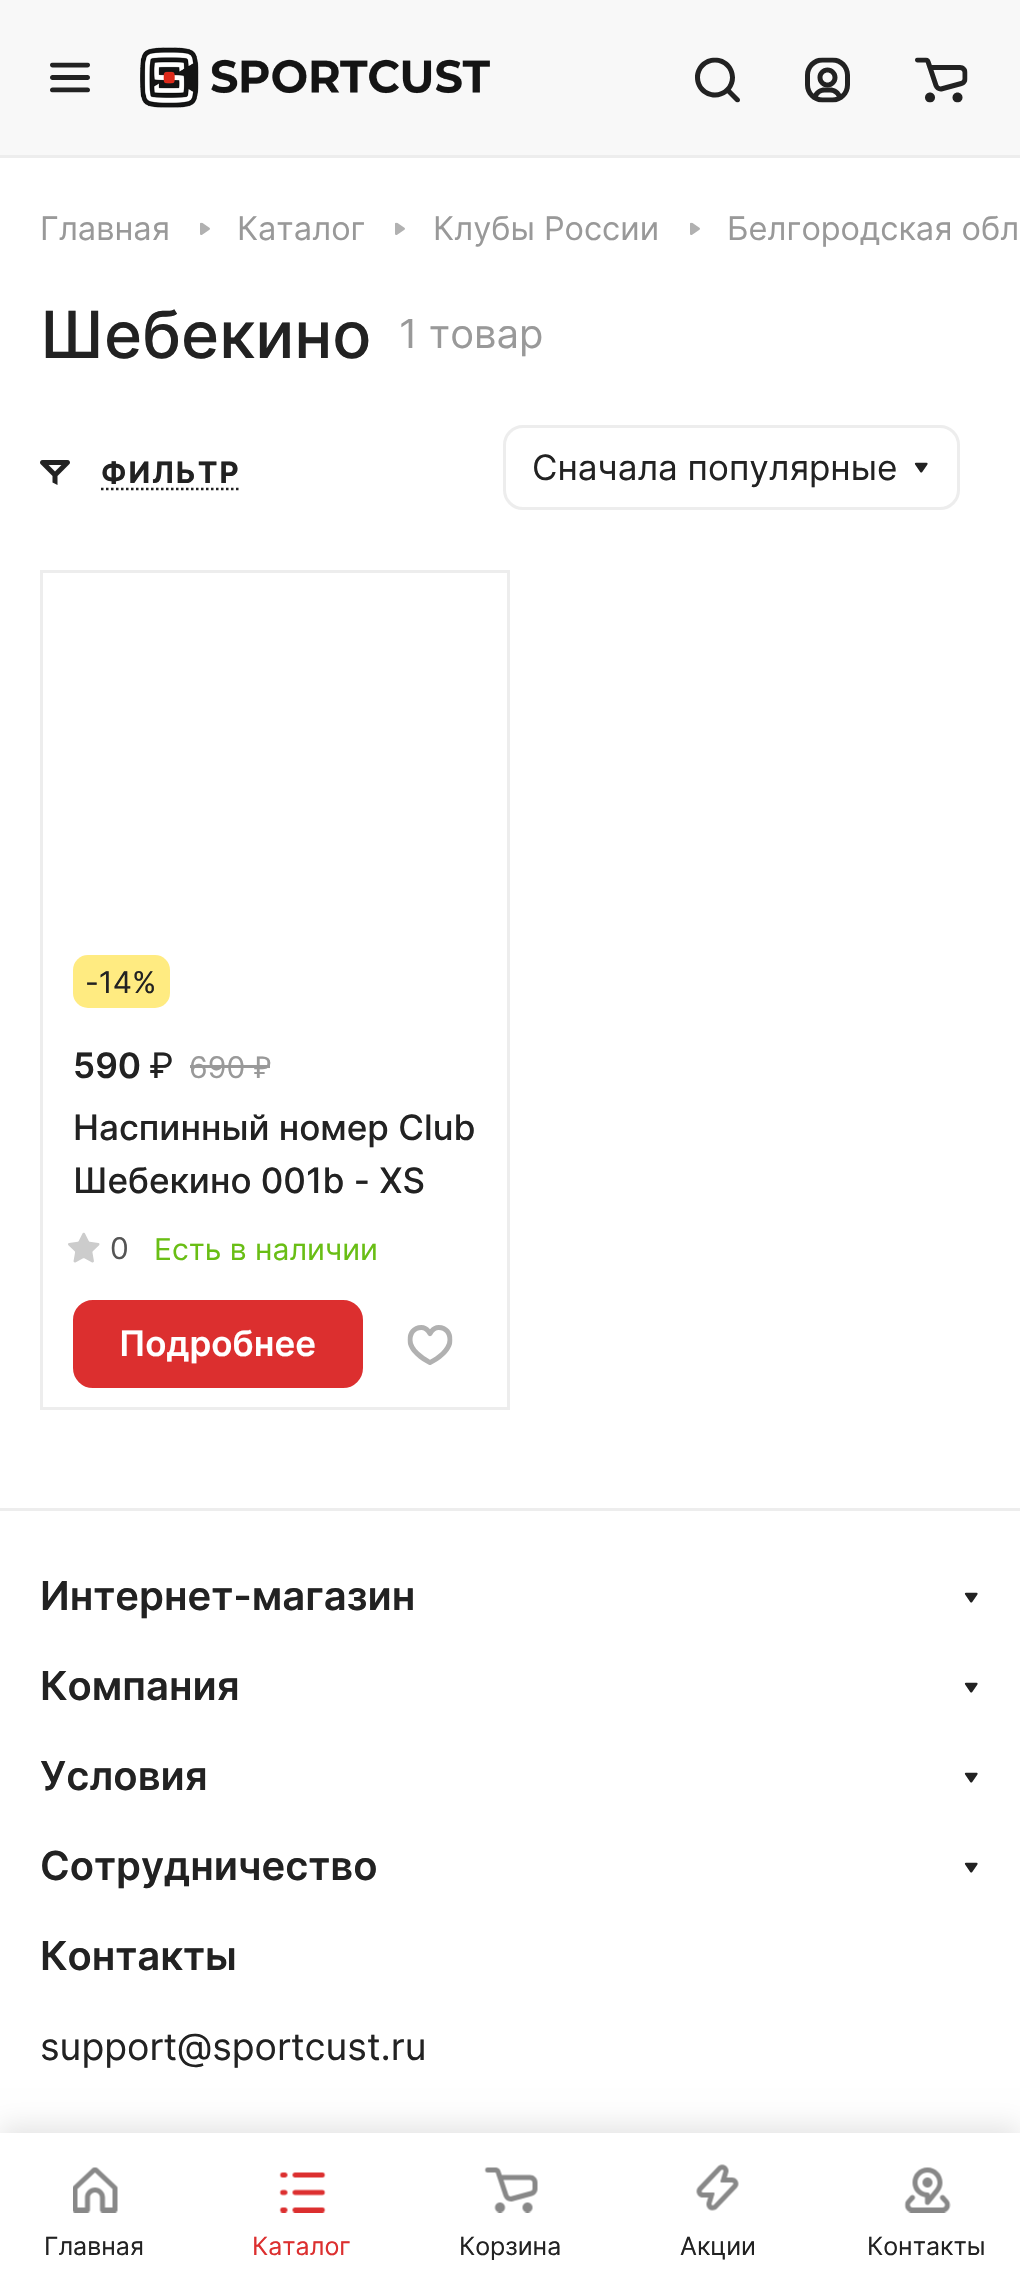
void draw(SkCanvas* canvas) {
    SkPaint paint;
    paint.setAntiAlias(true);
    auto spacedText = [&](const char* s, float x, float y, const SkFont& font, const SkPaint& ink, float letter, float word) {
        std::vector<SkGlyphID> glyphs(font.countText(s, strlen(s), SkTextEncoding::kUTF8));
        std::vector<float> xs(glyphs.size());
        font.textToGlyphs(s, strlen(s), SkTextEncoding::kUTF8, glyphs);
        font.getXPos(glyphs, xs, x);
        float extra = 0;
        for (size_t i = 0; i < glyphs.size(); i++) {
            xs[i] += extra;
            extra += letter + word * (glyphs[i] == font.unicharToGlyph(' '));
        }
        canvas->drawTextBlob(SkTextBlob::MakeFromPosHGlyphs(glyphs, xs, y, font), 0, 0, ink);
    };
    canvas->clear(0xFFFFFFFF);
    paint.setColor(0xFFEDEDED);
    canvas->drawRect(SkRect::MakeXYWH(0, 155, 1020, 3), paint);
    paint.setColor(0xFFF8F8F8);
    canvas->drawRect(SkRect::MakeXYWH(0, 0, 1020, 155), paint);
    canvas->drawImageRect(SkImages::DeferredFromEncodedData(SkData::MakeFromFileName("img1.png")), SkRect::MakeXYWH(50, 62, 40, 31), SkSamplingOptions());
    canvas->drawImageRect(SkImages::DeferredFromEncodedData(SkData::MakeFromFileName("img2.png")), SkRect::MakeXYWH(140, 47, 350, 61), SkSamplingOptions());
    canvas->drawImageRect(SkImages::DeferredFromEncodedData(SkData::MakeFromFileName("img3.png")), SkRect::MakeXYWH(695, 57, 45, 46), SkSamplingOptions());
    canvas->drawImageRect(SkImages::DeferredFromEncodedData(SkData::MakeFromFileName("img4.png")), SkRect::MakeXYWH(805, 57, 45, 46), SkSamplingOptions());
    canvas->drawImageRect(SkImages::DeferredFromEncodedData(SkData::MakeFromFileName("img5.png")), SkRect::MakeXYWH(915, 57, 53, 46), SkSamplingOptions());
    SkFont font1(fontMgr->matchFamilyStyle("Inter", SkFontStyle::Normal()), 32.5f);
    font1.setSubpixel(true);
    paint.setColor(0xFF999999);
    canvas->drawString("Главная", 40, 240, font1, paint);
    canvas->drawImageRect(SkImages::DeferredFromEncodedData(SkData::MakeFromFileName("img6.png")), SkRect::MakeXYWH(200, 222, 10, 13), SkSamplingOptions());
    canvas->drawString("Каталог", 237, 240, font1, paint);
    canvas->drawImageRect(SkImages::DeferredFromEncodedData(SkData::MakeFromFileName("img6.png")), SkRect::MakeXYWH(395, 222, 10, 13), SkSamplingOptions());
    canvas->drawString("Клубы России", 433, 240, font1, paint);
    canvas->drawImageRect(SkImages::DeferredFromEncodedData(SkData::MakeFromFileName("img6.png")), SkRect::MakeXYWH(690, 222, 10, 13), SkSamplingOptions());
    canvas->drawString("Белгородская обл", 727, 240, font1, paint);
    SkFont font2(fontMgr->matchFamilyStyle("Inter", SkFontStyle(500, SkFontStyle::kNormal_Width, SkFontStyle::kUpright_Slant)), 65);
    font2.setSubpixel(true);
    paint.setColor(0xFF222222);
    canvas->drawString("Шебекино", 40, 358, font2, paint);
    SkFont font3(fontMgr->matchFamilyStyle("Inter", SkFontStyle::Normal()), 40);
    font3.setSubpixel(true);
    paint.setColor(0xFF999999);
    canvas->drawString("1 товар", 399, 348, font3, paint);
    canvas->drawImageRect(SkImages::DeferredFromEncodedData(SkData::MakeFromFileName("img7.png")), SkRect::MakeXYWH(40, 460, 30, 25), SkSamplingOptions());
    SkFont font4(fontMgr->matchFamilyStyle("Inter", SkFontStyle::Bold()), 29.5f);
    font4.setSubpixel(true);
    paint.setColor(0xFF222222);
    spacedText("ФИЛЬТР", 101, 483, font4, paint, 2, 0);
    paint.setStyle(SkPaint::kStroke_Style);
    paint.setStrokeWidth(2.5f);
    paint.setPathEffect(SkDashPathEffect::Make({{2.5f, 2.5f}}, 0));
    canvas->drawPath(SkPathBuilder().moveTo(101, 489).lineTo(240, 489).detach(), paint);
    paint.setPathEffect(nullptr);
    paint.setStrokeWidth(3);
    paint.setColor(0xFFEDEDED);
    canvas->drawRoundRect(SkRect::MakeXYWH(504.5f, 426.5f, 454, 82), 18.5f, 18.5f, paint);
    SkFont font5(fontMgr->matchFamilyStyle("Inter", SkFontStyle::Normal()), 35);
    font5.setSubpixel(true);
    paint.setStyle(SkPaint::kFill_Style);
    paint.setColor(0xFF222222);
    canvas->drawString("Сначала популярные", 532, 480, font5, paint);
    canvas->drawImageRect(SkImages::DeferredFromEncodedData(SkData::MakeFromFileName("img8.png")), SkRect::MakeXYWH(914, 462, 14, 11), SkSamplingOptions());
    paint.setStyle(SkPaint::kStroke_Style);
    paint.setColor(0xFFEDEDED);
    canvas->drawRect(SkRect::MakeXYWH(41.5f, 571.5f, 467, 837), paint);
    paint.setStyle(SkPaint::kFill_Style);
    paint.setColor(0xFFFFEB81);
    canvas->drawRoundRect(SkRect::MakeXYWH(73, 955, 97, 53), 15, 15, paint);
    SkFont font6(fontMgr->matchFamilyStyle("Inter", SkFontStyle::Normal()), 30);
    font6.setSubpixel(true);
    paint.setColor(0xFF222222);
    canvas->drawString("-14%", 85, 993, font6, paint);
    SkFont font7(fontMgr->matchFamilyStyle("Inter", SkFontStyle(600, SkFontStyle::kNormal_Width, SkFontStyle::kUpright_Slant)), 35);
    font7.setSubpixel(true);
    canvas->drawString("590", 73, 1078, font7, paint);
    SkFont font8(fontMgr->matchFamilyStyle("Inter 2", SkFontStyle::Normal()), 35);
    font8.setSubpixel(true);
    canvas->drawString("₽", 149, 1078, font8, paint);
    paint.setColor(0xFF999999);
    canvas->drawString("690", 189, 1078, font6, paint);
    canvas->drawRect(SkRect::MakeXYWH(190, 1065, 80, 3), paint);
    SkFont font9(fontMgr->matchFamilyStyle("Noto Sans", SkFontStyle::Normal()), 30);
    font9.setSubpixel(true);
    canvas->drawString("₽", 254, 1078, font9, paint);
    SkFont font10(fontMgr->matchFamilyStyle("Inter", SkFontStyle(500, SkFontStyle::kNormal_Width, SkFontStyle::kUpright_Slant)), 35);
    font10.setSubpixel(true);
    paint.setColor(0xFF222222);
    canvas->drawString("Наспинный номер Club", 73, 1140, font10, paint);
    canvas->drawString("Шебекино 001b - XS", 73, 1193, font10, paint);
    canvas->drawImageRect(SkImages::DeferredFromEncodedData(SkData::MakeFromFileName("img9.png")), SkRect::MakeXYWH(68, 1232, 32, 31), SkSamplingOptions());
    paint.setColor(0xFF555555);
    canvas->drawString("0", 110, 1259, font6, paint);
    paint.setColor(0xFF69BE15);
    canvas->drawString("Есть в наличии", 154, 1260, font6, paint);
    paint.setColor(0xFFDC2F2F);
    canvas->drawRoundRect(SkRect::MakeXYWH(74.5f, 1301.5f, 287, 85), 18.5f, 18.5f, paint);
    paint.setStyle(SkPaint::kStroke_Style);
    canvas->drawRoundRect(SkRect::MakeXYWH(74.5f, 1301.5f, 287, 85), 18.5f, 18.5f, paint);
    paint.setStyle(SkPaint::kFill_Style);
    paint.setColor(0xFFFFFFFF);
    canvas->drawString("Подробнее", 119, 1356, font7, paint);
    canvas->drawImageRect(SkImages::DeferredFromEncodedData(SkData::MakeFromFileName("img10.png")), SkRect::MakeXYWH(407, 1325, 46, 40), SkSamplingOptions());
    paint.setColor(0xFFEDEDED);
    canvas->drawRect(SkRect::MakeXYWH(0, 1508, 1020, 3), paint);
    SkFont font11(fontMgr->matchFamilyStyle("Inter", SkFontStyle(600, SkFontStyle::kNormal_Width, SkFontStyle::kUpright_Slant)), 40);
    font11.setSubpixel(true);
    paint.setColor(0xFF222222);
    canvas->drawString("Интернет-магазин", 40, 1610, font11, paint);
    canvas->drawImageRect(SkImages::DeferredFromEncodedData(SkData::MakeFromFileName("img8.png")), SkRect::MakeXYWH(964, 1592, 14, 11), SkSamplingOptions());
    canvas->drawString("Компания", 40, 1700, font11, paint);
    canvas->drawImageRect(SkImages::DeferredFromEncodedData(SkData::MakeFromFileName("img8.png")), SkRect::MakeXYWH(964, 1682, 14, 11), SkSamplingOptions());
    canvas->drawString("Условия", 40, 1790, font11, paint);
    canvas->drawImageRect(SkImages::DeferredFromEncodedData(SkData::MakeFromFileName("img11.png")), SkRect::MakeXYWH(964, 1772, 14, 11), SkSamplingOptions());
    canvas->drawString("Сотрудничество", 40, 1880, font11, paint);
    canvas->drawImageRect(SkImages::DeferredFromEncodedData(SkData::MakeFromFileName("img8.png")), SkRect::MakeXYWH(964, 1862, 14, 11), SkSamplingOptions());
    canvas->drawString("Контакты", 40, 1970, font11, paint);
    SkFont font12(fontMgr->matchFamilyStyle("Inter", SkFontStyle::Normal()), 37.5f);
    font12.setSubpixel(true);
    canvas->drawString("support@sportcust.ru", 40, 2060, font12, paint);
    paint.setColor(0x1A000000);
    paint.setMaskFilter(SkMaskFilter::MakeBlur(kNormal_SkBlurStyle, 12.5f));
    canvas->drawRect(SkRect::MakeXYWH(0, 2125, 1020, 153), paint);
    paint.setMaskFilter(nullptr);
    paint.setColor(0xFFFFFFFF);
    canvas->drawRect(SkRect::MakeXYWH(0, 2133, 1020, 150), paint);
    canvas->drawImageRect(SkImages::DeferredFromEncodedData(SkData::MakeFromFileName("img12.png")), SkRect::MakeXYWH(73, 2167, 45, 46), SkSamplingOptions());
    SkFont font13(fontMgr->matchFamilyStyle("Inter", SkFontStyle::Normal()), 25);
    font13.setSubpixel(true);
    paint.setColor(0xFF222222);
    canvas->drawString("Главная", 44, 2255, font13, paint);
    canvas->drawImageRect(SkImages::DeferredFromEncodedData(SkData::MakeFromFileName("img13.png")), SkRect::MakeXYWH(279, 2172, 47, 41), SkSamplingOptions());
    paint.setColor(0xFFDC2F2F);
    canvas->drawString("Каталог", 252, 2255, font13, paint);
    canvas->drawImageRect(SkImages::DeferredFromEncodedData(SkData::MakeFromFileName("img14.png")), SkRect::MakeXYWH(484, 2167, 54, 46), SkSamplingOptions());
    paint.setColor(0xFF222222);
    canvas->drawString("Корзина", 459, 2255, font13, paint);
    canvas->drawImageRect(SkImages::DeferredFromEncodedData(SkData::MakeFromFileName("img15.png")), SkRect::MakeXYWH(696, 2164, 43, 47), SkSamplingOptions());
    canvas->drawString("Акции", 680, 2255, font13, paint);
    canvas->drawImageRect(SkImages::DeferredFromEncodedData(SkData::MakeFromFileName("img16.png")), SkRect::MakeXYWH(904, 2167, 47, 46), SkSamplingOptions());
    canvas->drawString("Контакты", 867, 2255, font13, paint);
}
